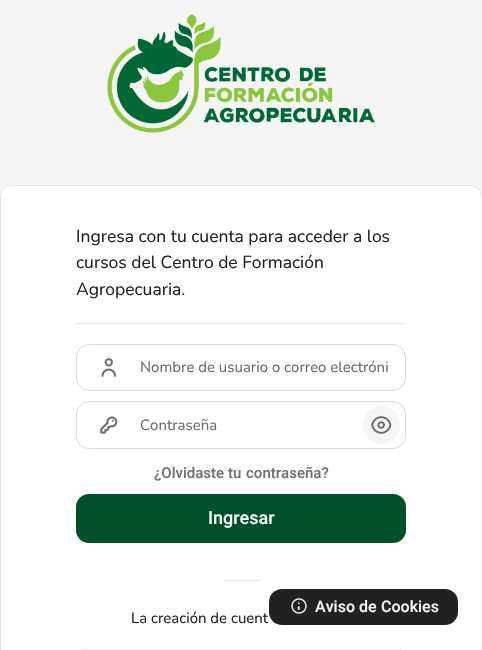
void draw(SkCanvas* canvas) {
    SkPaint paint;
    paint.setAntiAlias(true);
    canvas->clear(0xFFF5F5F5);
    canvas->drawImageRect(SkImages::DeferredFromEncodedData(SkData::MakeFromFileName("img1.png")), SkRect::MakeXYWH(107, 13, 268, 120), SkSamplingOptions());
    paint.setStyle(SkPaint::kStroke_Style);
    paint.setStrokeWidth(1);
    paint.setColor(0xFFE1E1E1);
    canvas->drawRoundRect(SkRect::MakeXYWH(0.5f, 185.5f, 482, 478), 12.5f, 12.5f, paint);
    paint.setStyle(SkPaint::kFill_Style);
    paint.setColor(0xFFFFFFFF);
    canvas->drawRoundRect(SkRect::MakeXYWH(1, 186, 480, 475), 11, 11, paint);
    SkFont font1(fontMgr->matchFamilyStyle("Nunito", SkFontStyle(200, SkFontStyle::kNormal_Width, SkFontStyle::kUpright_Slant)), 17.5f);
    font1.setSubpixel(true);
    paint.setColor(0xFF212121);
    canvas->drawString("Ingresa con tu cuenta para acceder a los", 76, 242, font1, paint);
    canvas->drawString("cursos del Centro de Formación", 76, 268, font1, paint);
    canvas->drawString("Agropecuaria.", 76, 295, font1, paint);
    paint.setColor(0xFFE7E7E7);
    canvas->drawRect(SkRect::MakeXYWH(76, 323, 330, 1), paint);
    paint.setStyle(SkPaint::kStroke_Style);
    paint.setColor(0xFFD8D8D8);
    canvas->drawRoundRect(SkRect::MakeXYWH(76.5f, 344.5f, 329, 46), 12.5f, 12.5f, paint);
    canvas->drawImageRect(SkImages::DeferredFromEncodedData(SkData::MakeFromFileName("img2.png")), SkRect::MakeXYWH(101, 358, 15, 19), SkSamplingOptions());
    SkFont font2(fontMgr->matchFamilyStyle("Nunito", SkFontStyle(200, SkFontStyle::kNormal_Width, SkFontStyle::kUpright_Slant)), 15);
    font2.setSubpixel(true);
    paint.setStyle(SkPaint::kFill_Style);
    paint.setColor(0xFF6A6A6A);
    canvas->drawString("Nombre de usuario o correo electróni", 140, 372, font2, paint);
    paint.setStyle(SkPaint::kStroke_Style);
    paint.setColor(0xFFD8D8D8);
    canvas->drawRoundRect(SkRect::MakeXYWH(76.5f, 401.5f, 329, 47), 12.5f, 12.5f, paint);
    canvas->drawImageRect(SkImages::DeferredFromEncodedData(SkData::MakeFromFileName("img3.png")), SkRect::MakeXYWH(100, 416, 18, 18), SkSamplingOptions());
    paint.setStyle(SkPaint::kFill_Style);
    paint.setColor(0xFF6A6A6A);
    canvas->drawString("Contraseña", 140, 430, font2, paint);
    paint.setColor(0xFFF5F5F5);
    canvas->drawRoundRect(SkRect::MakeXYWH(363, 406, 37, 38), 18.5f, 18.5f, paint);
    canvas->drawImageRect(SkImages::DeferredFromEncodedData(SkData::MakeFromFileName("img4.png")), SkRect::MakeXYWH(371, 416, 21, 18), SkSamplingOptions());
    SkFont font3(fontMgr->matchFamilyStyle("Roboto", SkFontStyle(500, SkFontStyle::kNormal_Width, SkFontStyle::kUpright_Slant)), 15);
    font3.setSubpixel(true);
    paint.setColor(0xFF707070);
    canvas->drawString("¿Olvidaste", 154, 478, font3, paint);
    canvas->drawString("tu", 228, 478, font3, paint);
    canvas->drawString("contraseña?", 246, 478, font3, paint);
    paint.setColor(0xFF004F2A);
    canvas->drawRoundRect(SkRect::MakeXYWH(76, 494, 330, 49), 13, 13, paint);
    SkFont font4(fontMgr->matchFamilyStyle("Roboto", SkFontStyle(500, SkFontStyle::kNormal_Width, SkFontStyle::kUpright_Slant)), 18);
    font4.setSubpixel(true);
    paint.setColor(0xFFFFFFFF);
    canvas->drawString("Ingresar", 208, 524, font4, paint);
    paint.setColor(0xFFE7E7E7);
    canvas->drawRect(SkRect::MakeXYWH(223, 580, 37, 1), paint);
    paint.setColor(0xFF212121);
    canvas->drawString("La creación de cuent", 131, 623, font2, paint);
    paint.setColor(0xFFE6EDEA);
    canvas->drawRoundRect(SkRect::MakeXYWH(76, 649, 330, 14), 13, 13, paint);
    paint.setColor(0xFF212121);
    canvas->drawRoundRect(SkRect::MakeXYWH(269, 589, 189, 36), 13, 13, paint);
    canvas->drawImageRect(SkImages::DeferredFromEncodedData(SkData::MakeFromFileName("img5.png")), SkRect::MakeXYWH(291, 598, 16, 16), SkSamplingOptions());
    SkFont font5(fontMgr->matchFamilyStyle("Roboto", SkFontStyle(500, SkFontStyle::kNormal_Width, SkFontStyle::kUpright_Slant)), 16);
    font5.setSubpixel(true);
    paint.setColor(0xFFF5F5F5);
    canvas->drawString("Aviso", 315, 612, font5, paint);
    canvas->drawString("de", 359, 612, font5, paint);
    canvas->drawString("Cookies", 381, 612, font5, paint);
}
